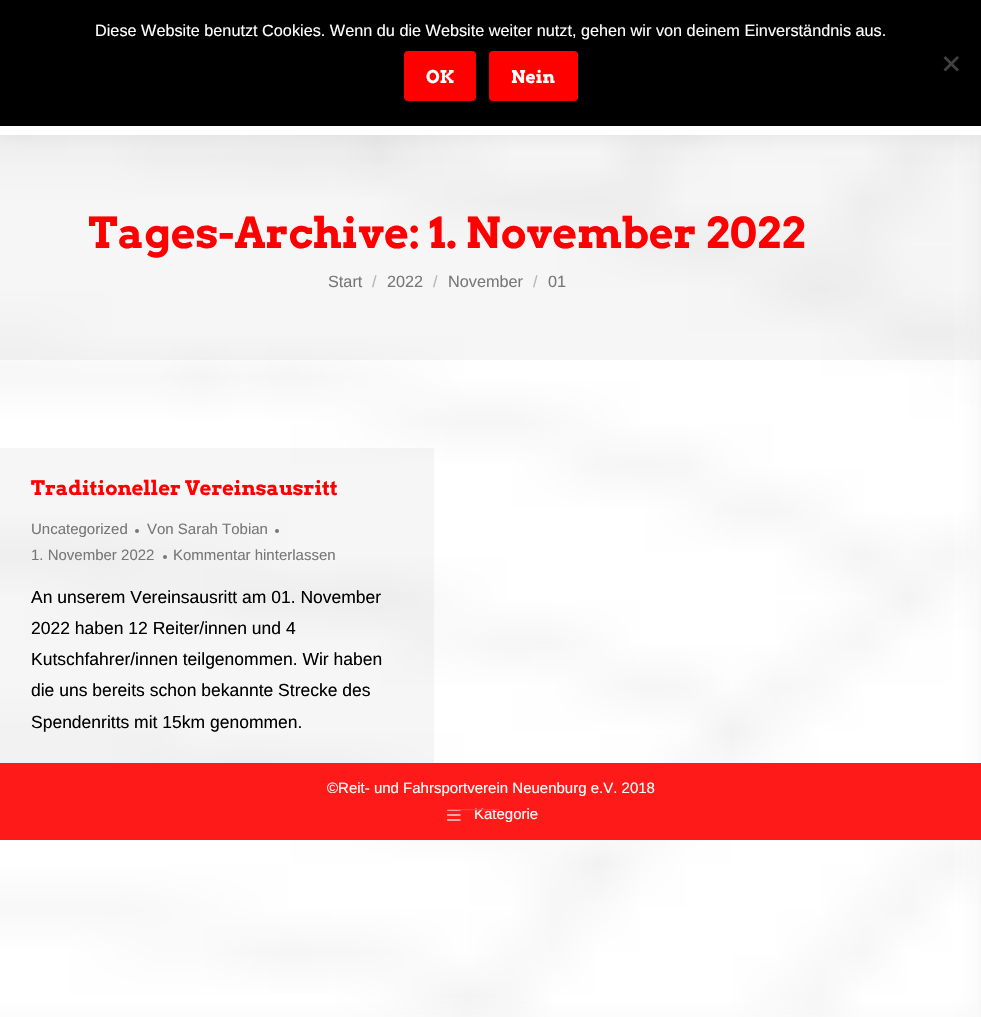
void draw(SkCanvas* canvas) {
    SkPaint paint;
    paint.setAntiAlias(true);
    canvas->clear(0xFFF7F7F7);
    canvas->drawImageRect(SkImages::DeferredFromEncodedData(SkData::MakeFromFileName("img1.png")), SkRect::MakeXYWH(0, 135, 979, 882), SkSamplingOptions());
    paint.setColor(0x1AAAAAAA);
    canvas->drawRect(SkRect::MakeXYWH(0, 135, 981, 225), paint);
    paint.setColor(0x12000000);
    paint.setMaskFilter(SkMaskFilter::MakeBlur(kNormal_SkBlurStyle, 9.5f));
    canvas->drawRect(SkRect::MakeXYWH(-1, -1, 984, 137), paint);
    paint.setMaskFilter(nullptr);
    paint.setColor(0xFF000000);
    canvas->drawRect(SkRect::MakeXYWH(0, 0, 981, 126), paint);
    SkFont font1(fontMgr->matchFamilyStyle("Liberation Sans", SkFontStyle::Normal()), 16.25f);
    font1.setSubpixel(true);
    paint.setColor(0xFFFFFFFF);
    canvas->drawString("Diese Website benutzt Cookies. Wenn du die Website weiter nutzt, gehen wir von deinem Einverständnis aus.", 95, 36, font1, paint);
    paint.setColor(0xFF404040);
    canvas->drawPath(SkPathBuilder().moveTo(957, 56).lineTo(959, 58).lineTo(945.5f, 71.5f).lineTo(943.5f, 69.5f).close().detach(), paint);
    canvas->drawPath(SkPathBuilder().moveTo(943.5f, 58).lineTo(945.5f, 56).lineTo(959, 69.5f).lineTo(957, 71.5f).close().detach(), paint);
    paint.setColor(0xFFFF0000);
    canvas->drawRoundRect(SkRect::MakeXYWH(404, 51, 72, 50), 4, 4, paint);
    SkFont font2(fontMgr->matchFamilyStyle("Arvo", SkFontStyle::Bold()), 17.5f);
    font2.setSubpixel(true);
    paint.setColor(0xFFFFFFFF);
    canvas->drawString("OK", 426, 83, font2, paint);
    paint.setColor(0xFFFF0000);
    canvas->drawRoundRect(SkRect::MakeXYWH(489, 51, 89, 50), 4, 4, paint);
    paint.setColor(0xFFFFFFFF);
    canvas->drawString("Nein", 511, 83, font2, paint);
    canvas->drawRect(SkRect::MakeXYWH(0, 126, 981, 9), paint);
    canvas->save();
    canvas->clipRect(SkRect::MakeXYWH(89, 206, 716, 55));
    SkFont font3(fontMgr->matchFamilyStyle("Arvo", SkFontStyle::Bold()), 42.5f);
    font3.setSubpixel(true);
    paint.setColor(0xFFFF0000);
    canvas->drawString("Tages-Archive:", 88, 248, font3, paint);
    canvas->restore();
    canvas->drawString("1. November 2022", 429, 248, font3, paint);
    paint.setColor(0xFF777777);
    canvas->drawString("Start", 328, 287, font1, paint);
    paint.setColor(0xFFB6B6B6);
    canvas->drawString("/", 372, 287, font1, paint);
    paint.setColor(0xFF777777);
    canvas->drawString("2022", 387, 287, font1, paint);
    paint.setColor(0xFFB6B6B6);
    canvas->drawString("/", 433, 287, font1, paint);
    paint.setColor(0xFF777777);
    canvas->drawString("November", 448, 287, font1, paint);
    paint.setColor(0xFFB6B6B6);
    canvas->drawString("/", 533, 287, font1, paint);
    paint.setColor(0xFF777777);
    canvas->drawString("01", 548, 287, font1, paint);
    paint.setColor(0x1AAAAAAA);
    canvas->drawRect(SkRect::MakeXYWH(0, 448, 434, 315), paint);
    SkFont font4(fontMgr->matchFamilyStyle("Arvo", SkFontStyle::Bold()), 20);
    font4.setSubpixel(true);
    paint.setColor(0xFFFF0000);
    canvas->drawString("Traditioneller Vereinsausritt", 31, 495, font4, paint);
    SkFont font5(fontMgr->matchFamilyStyle("Liberation Sans", SkFontStyle::Normal()), 15);
    font5.setSubpixel(true);
    paint.setColor(0xFF777777);
    canvas->drawString("Uncategorized", 31, 534, font5, paint);
    canvas->drawCircle(137, 531, 2, paint);
    canvas->drawString("Von Sarah Tobian", 147, 534, font5, paint);
    canvas->drawCircle(277, 531, 2, paint);
    canvas->drawString("1. November 2022", 31, 560, font5, paint);
    canvas->drawCircle(165, 557, 2, paint);
    canvas->drawString("Kommentar hinterlassen", 173, 560, font5, paint);
    SkFont font6(fontMgr->matchFamilyStyle("Liberation Sans", SkFontStyle::Normal()), 17.5f);
    font6.setSubpixel(true);
    paint.setColor(0xFF000000);
    canvas->drawString("An unserem Vereinsausritt am 01. November", 31, 603, font6, paint);
    canvas->drawString("2022 haben 12 Reiter/innen und 4", 31, 634, font6, paint);
    canvas->drawString("Kutschfahrer/innen teilgenommen. Wir haben", 31, 665, font6, paint);
    canvas->drawString("die uns bereits schon bekannte Strecke des", 31, 696, font6, paint);
    canvas->drawString("Spendenritts mit 15km genommen.", 31, 728, font6, paint);
    paint.setColor(0xFFFF1A1A);
    canvas->drawRect(SkRect::MakeXYWH(0, 763, 981, 77), paint);
    paint.setColor(0xFFFFFFFF);
    canvas->drawString("©Reit- und Fahrsportverein Neuenburg e.V. 2018", 327, 793, font5, paint);
    canvas->drawImageRect(SkImages::DeferredFromEncodedData(SkData::MakeFromFileName("img2.png")), SkRect::MakeXYWH(447, 809, 14, 12), SkSamplingOptions());
    canvas->drawString("Kategorie", 474, 819, font5, paint);
    paint.setColor(0xFFFF3D3D);
    canvas->drawString("———", 447, 814, font6, paint);
}
